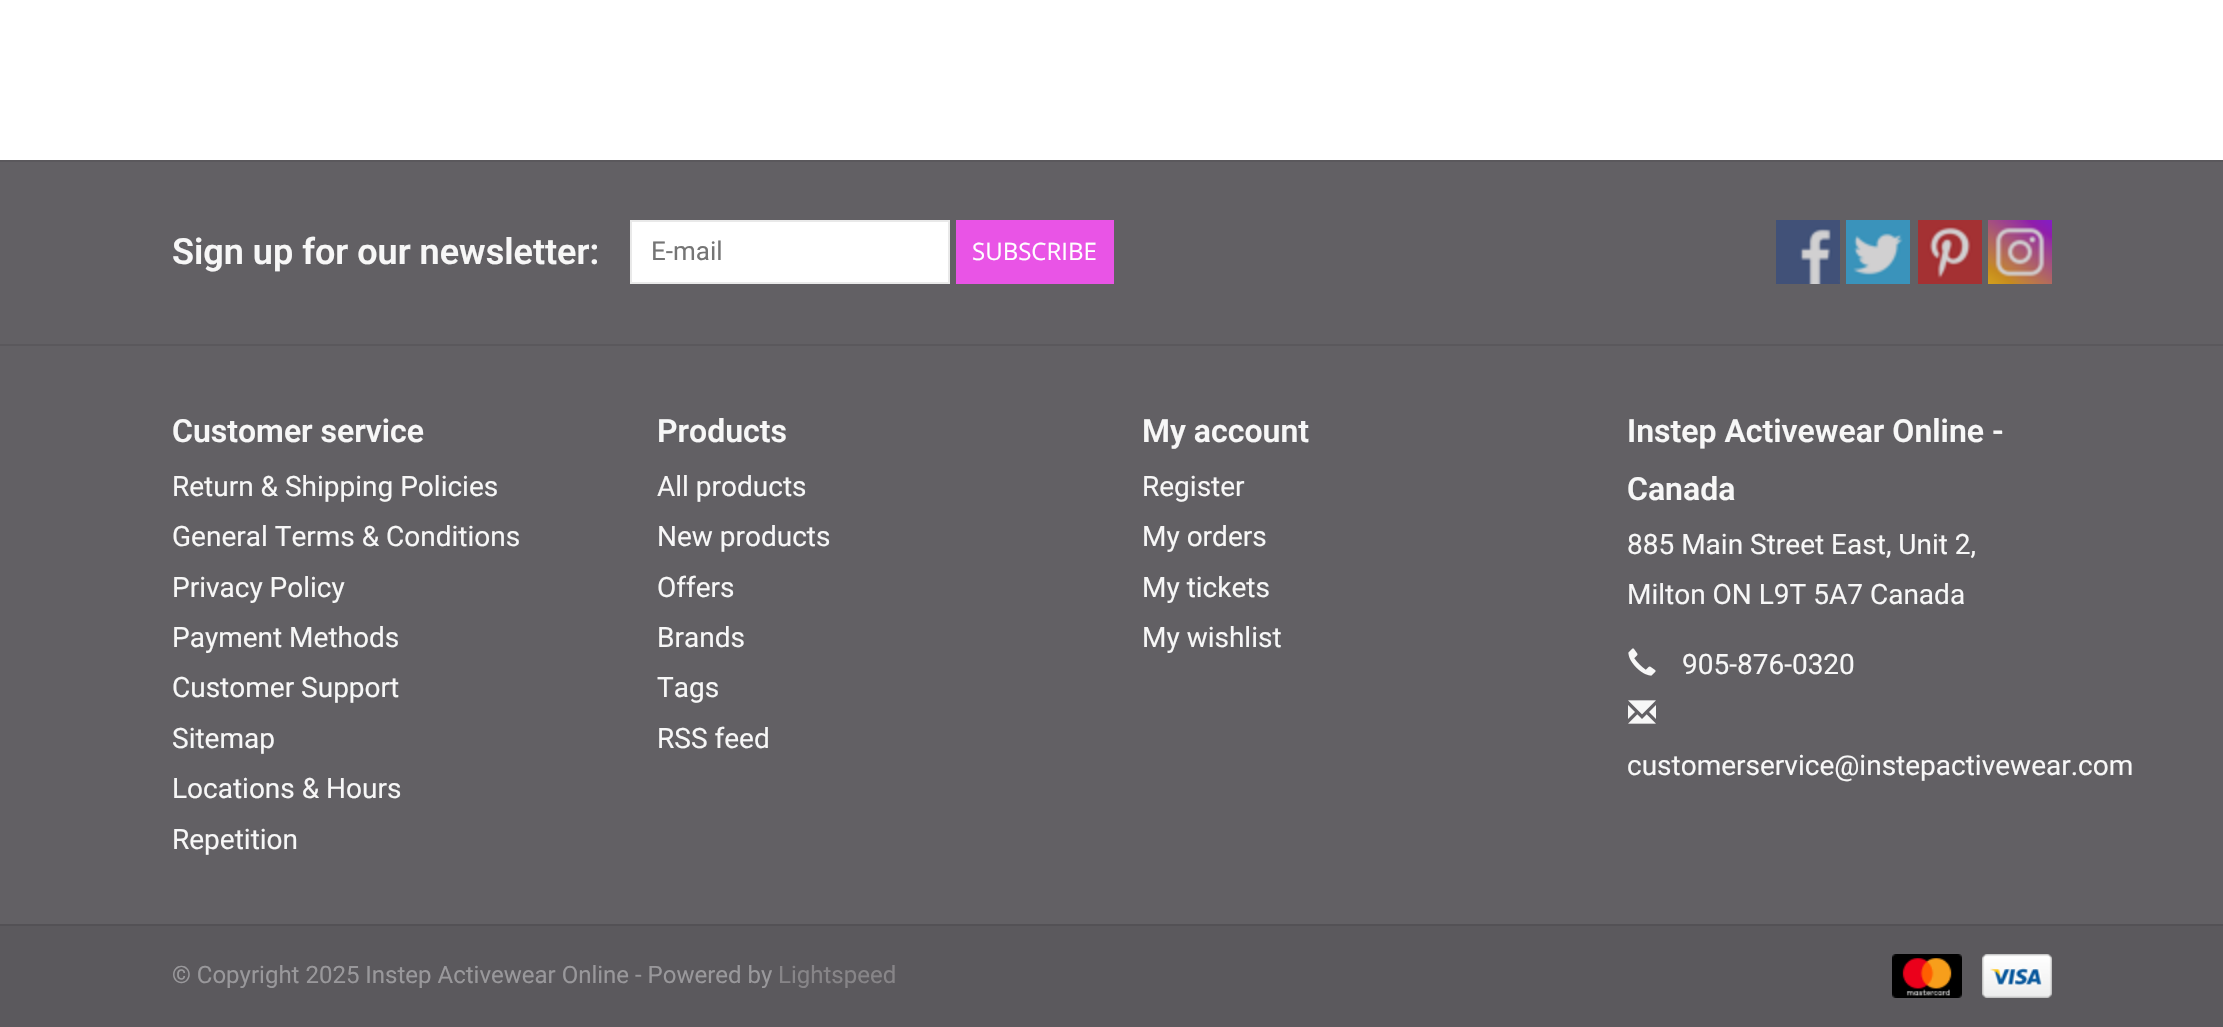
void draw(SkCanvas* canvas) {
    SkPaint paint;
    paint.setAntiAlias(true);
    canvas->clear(0xFFFFFFFF);
    paint.setColor(0xFF626064);
    canvas->drawRect(SkRect::MakeXYWH(0, 162, 2223, 762), paint);
    paint.setColor(0xFF5A585C);
    canvas->drawRect(SkRect::MakeXYWH(0, 160, 2223, 2), paint);
    SkFont font1(fontMgr->matchFamilyStyle("Roboto", SkFontStyle(600, SkFontStyle::kNormal_Width, SkFontStyle::kUpright_Slant)), 36);
    font1.setSubpixel(true);
    paint.setColor(0xFFF7F7F7);
    canvas->drawString("Sign up for our newsletter:", 172, 264, font1, paint);
    paint.setColor(0xFFFFFFFF);
    canvas->drawRect(SkRect::MakeXYWH(631, 221, 318, 62), paint);
    paint.setStyle(SkPaint::kStroke_Style);
    paint.setStrokeWidth(2);
    paint.setColor(0xFFE9E9E9);
    canvas->drawRect(SkRect::MakeXYWH(631, 221, 318, 62), paint);
    SkFont font2(fontMgr->matchFamilyStyle("Roboto", SkFontStyle::Normal()), 26);
    font2.setSubpixel(true);
    paint.setStyle(SkPaint::kFill_Style);
    paint.setColor(0xFF757575);
    canvas->drawString("E-mail", 651, 260, font2, paint);
    paint.setColor(0xFFE954E6);
    canvas->drawRect(SkRect::MakeXYWH(956, 220, 158, 64), paint);
    SkFont font3(fontMgr->matchFamilyStyle("Open Sans", SkFontStyle::Normal()), 24);
    font3.setSubpixel(true);
    paint.setColor(0xFFFFFFFF);
    canvas->drawString("SUBSCRIBE", 972, 260, font3, paint);
    canvas->drawImageRect(SkImages::DeferredFromEncodedData(SkData::MakeFromFileName("img1.png")), SkRect::MakeXYWH(1776, 220, 64, 64), SkSamplingOptions());
    canvas->drawImageRect(SkImages::DeferredFromEncodedData(SkData::MakeFromFileName("img2.png")), SkRect::MakeXYWH(1846, 220, 64, 64), SkSamplingOptions());
    canvas->drawImageRect(SkImages::DeferredFromEncodedData(SkData::MakeFromFileName("img3.png")), SkRect::MakeXYWH(1918, 220, 64, 64), SkSamplingOptions());
    canvas->drawImageRect(SkImages::DeferredFromEncodedData(SkData::MakeFromFileName("img4.png")), SkRect::MakeXYWH(1988, 220, 64, 64), SkSamplingOptions());
    paint.setColor(0xFF5A585C);
    canvas->drawRect(SkRect::MakeXYWH(0, 344, 2223, 2), paint);
    SkFont font4(fontMgr->matchFamilyStyle("Roboto", SkFontStyle(600, SkFontStyle::kNormal_Width, SkFontStyle::kUpright_Slant)), 32);
    font4.setSubpixel(true);
    paint.setColor(0xFFF7F7F7);
    canvas->drawString("Customer service", 172, 442, font4, paint);
    SkFont font5(fontMgr->matchFamilyStyle("Roboto", SkFontStyle::Normal()), 28);
    font5.setSubpixel(true);
    canvas->drawString("Return & Shipping Policies", 172, 496, font5, paint);
    canvas->drawString("General Terms & Conditions", 172, 546, font5, paint);
    canvas->drawString("Privacy Policy", 172, 597, font5, paint);
    canvas->drawString("Payment Methods", 172, 647, font5, paint);
    canvas->drawString("Customer Support", 172, 697, font5, paint);
    canvas->drawString("Sitemap", 172, 748, font5, paint);
    canvas->drawString("Locations & Hours", 172, 798, font5, paint);
    canvas->drawString("Repetition", 172, 849, font5, paint);
    canvas->drawString("Products", 657, 442, font4, paint);
    canvas->drawString("All products", 657, 496, font5, paint);
    canvas->drawString("New products", 657, 546, font5, paint);
    canvas->drawString("Offers", 657, 597, font5, paint);
    canvas->drawString("Brands", 657, 647, font5, paint);
    canvas->drawString("Tags", 657, 697, font5, paint);
    canvas->drawString("RSS feed", 657, 748, font5, paint);
    canvas->drawString("My account", 1142, 442, font4, paint);
    canvas->drawString("Register", 1142, 496, font5, paint);
    canvas->drawString("My orders", 1142, 546, font5, paint);
    canvas->drawString("My tickets", 1142, 597, font5, paint);
    canvas->drawString("My wishlist", 1142, 647, font5, paint);
    canvas->drawString("Instep Activewear Online -", 1627, 442, font4, paint);
    canvas->drawString("Canada", 1627, 500, font4, paint);
    canvas->drawString("885 Main Street East, Unit 2,", 1627, 554, font5, paint);
    canvas->drawString("Milton ON L9T 5A7 Canada", 1627, 604, font5, paint);
    canvas->drawImageRect(SkImages::DeferredFromEncodedData(SkData::MakeFromFileName("img5.png")), SkRect::MakeXYWH(1628, 648, 28, 28), SkSamplingOptions());
    canvas->drawString("905-876-0320", 1682, 674, font5, paint);
    canvas->drawImageRect(SkImages::DeferredFromEncodedData(SkData::MakeFromFileName("img6.png")), SkRect::MakeXYWH(1628, 700, 28, 24), SkSamplingOptions());
    canvas->drawString("customerservice@instepactivewear.com", 1627, 775, font5, paint);
    paint.setColor(0xFF535155);
    canvas->drawRect(SkRect::MakeXYWH(0, 924, 2223, 2), paint);
    paint.setColor(0xFF5B595D);
    canvas->drawRect(SkRect::MakeXYWH(0, 926, 2223, 101), paint);
    SkFont font6(fontMgr->matchFamilyStyle("Roboto", SkFontStyle::Normal()), 24);
    font6.setSubpixel(true);
    paint.setColor(0xFF99989B);
    canvas->drawString("© Copyright 2025 Instep Activewear Online - Powered by", 172, 983, font6, paint);
    paint.setColor(0xFF878588);
    canvas->drawString("Lightspeed", 778, 983, font6, paint);
    canvas->drawImageRect(SkImages::DeferredFromEncodedData(SkData::MakeFromFileName("img7.png")), SkRect::MakeXYWH(1892, 954, 70, 44), SkSamplingOptions());
    canvas->drawImageRect(SkImages::DeferredFromEncodedData(SkData::MakeFromFileName("img8.png")), SkRect::MakeXYWH(1982, 954, 70, 44), SkSamplingOptions());
}
